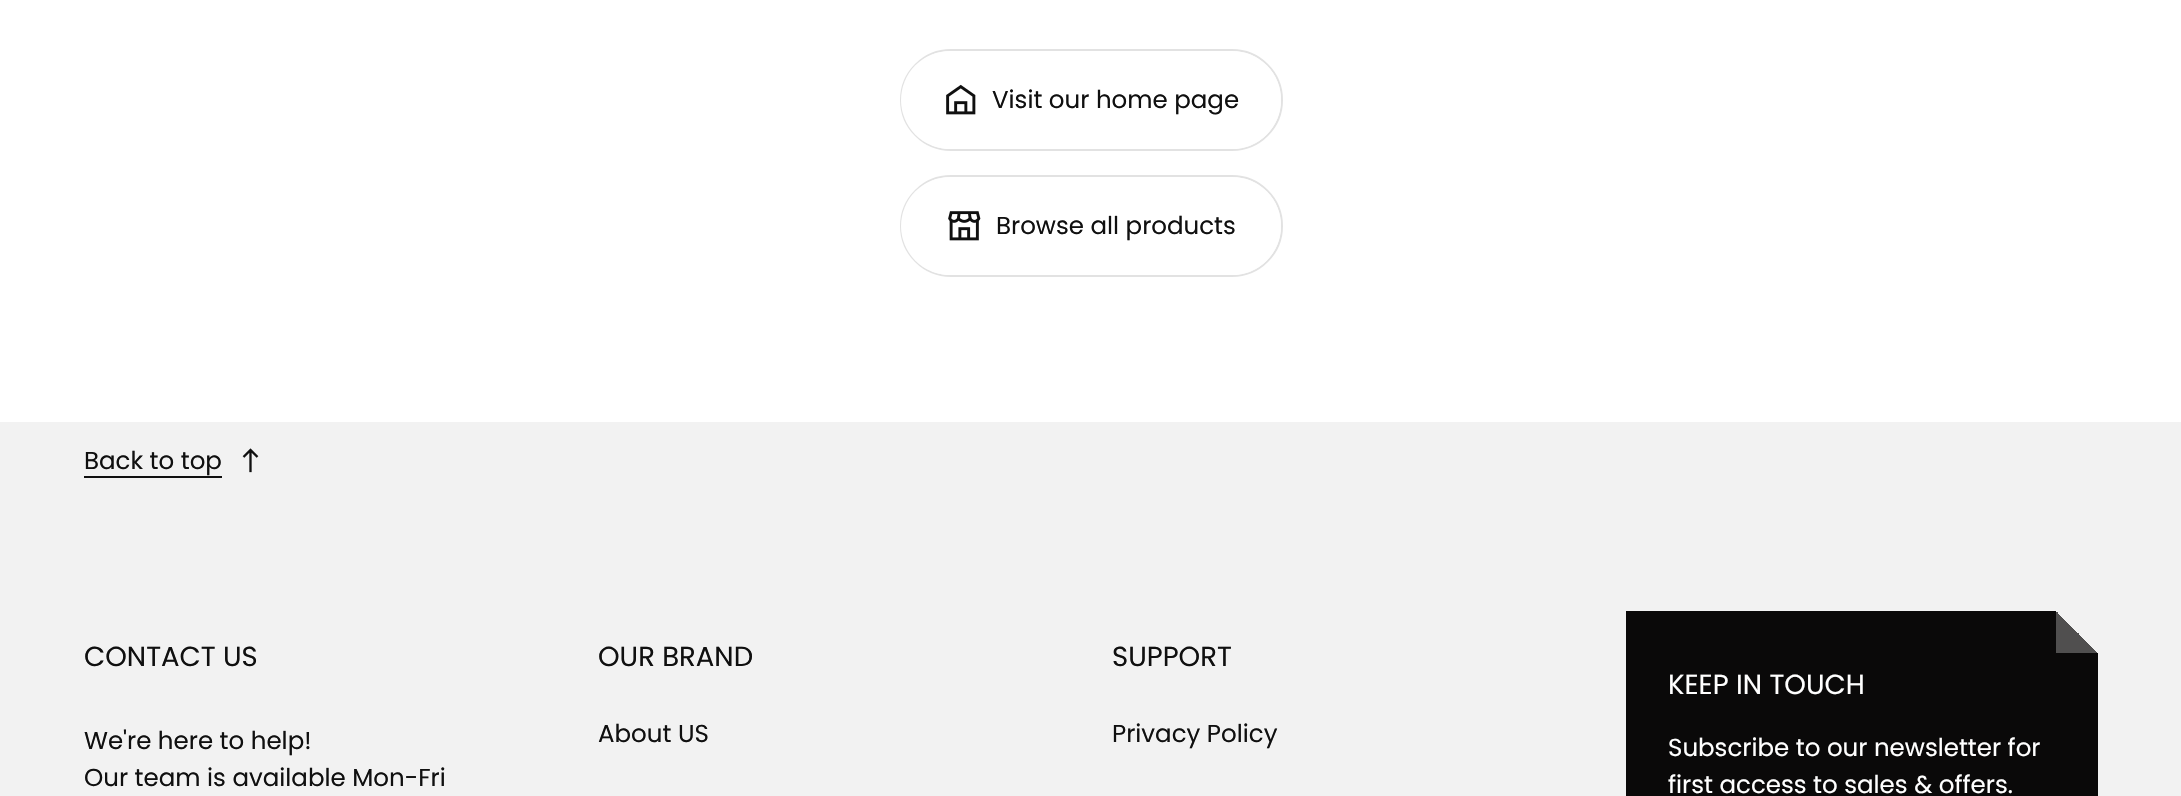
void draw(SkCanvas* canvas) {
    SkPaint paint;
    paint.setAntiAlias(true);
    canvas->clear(0xFFFFFFFF);
    paint.setStyle(SkPaint::kStroke_Style);
    paint.setStrokeWidth(2);
    paint.setColor(0xFFE2E2E2);
    canvas->drawRoundRect(SkRect::MakeXYWH(901, 50, 381, 100), 50, 50, paint);
    paint.setStyle(SkPaint::kFill_Style);
    paint.setColor(0xFFFFFFFF);
    canvas->drawRoundRect(SkRect::MakeXYWH(901, 51, 380, 98), 49, 49, paint);
    canvas->drawImageRect(SkImages::DeferredFromEncodedData(SkData::MakeFromFileName("img1.png")), SkRect::MakeXYWH(946, 84, 30, 31), SkSamplingOptions());
    SkFont font1(fontMgr->matchFamilyStyle("Poppins", SkFontStyle::Normal()), 24.5f);
    font1.setSubpixel(true);
    paint.setColor(0xFF101010);
    canvas->drawString("Visit our home page", 992, 108, font1, paint);
    paint.setStyle(SkPaint::kStroke_Style);
    paint.setColor(0xFFE2E2E2);
    canvas->drawRoundRect(SkRect::MakeXYWH(901, 176, 381, 100), 50, 50, paint);
    paint.setStyle(SkPaint::kFill_Style);
    paint.setColor(0xFFFFFFFF);
    canvas->drawRoundRect(SkRect::MakeXYWH(901, 177, 380, 98), 49, 49, paint);
    canvas->drawImageRect(SkImages::DeferredFromEncodedData(SkData::MakeFromFileName("img2.png")), SkRect::MakeXYWH(948, 211, 33, 30), SkSamplingOptions());
    paint.setColor(0xFF101010);
    canvas->drawString("Browse all products", 996, 234, font1, paint);
    paint.setColor(0xFFF2F2F2);
    canvas->drawRect(SkRect::MakeXYWH(0, 422, 2181, 374), paint);
    paint.setColor(0xFF101010);
    canvas->drawString("Back to top", 84, 469, font1, paint);
    canvas->drawRect(SkRect::MakeXYWH(84, 476, 138, 2), paint);
    canvas->drawImageRect(SkImages::DeferredFromEncodedData(SkData::MakeFromFileName("img3.png")), SkRect::MakeXYWH(242, 448, 17, 25), SkSamplingOptions());
    SkFont font2(fontMgr->matchFamilyStyle("Poppins", SkFontStyle::Normal()), 27.5f);
    font2.setSubpixel(true);
    canvas->drawString("CONTACT US", 84, 666, font2, paint);
    canvas->drawString("We're here to help!", 84, 749, font1, paint);
    canvas->drawString("Our team is available Mon-Fri", 84, 786, font1, paint);
    canvas->drawString("OUR BRAND", 598, 666, font2, paint);
    canvas->drawString("About US", 598, 742, font1, paint);
    canvas->drawString("SUPPORT", 1112, 666, font2, paint);
    canvas->drawString("Privacy Policy", 1112, 742, font1, paint);
    paint.setColor(0xFF0A0909);
    canvas->drawRect(SkRect::MakeXYWH(1626, 611, 472, 185), paint);
    {
        const SkColor colors[] = {0xFF504F4F, 0xFFF2F2F2};
        const float stops[] = {0.5f, 0.5f};
        const SkPoint ends[] = {{2056, 653}, {2098, 611}};
        paint.setShader(SkGradientShader::MakeLinear(ends, colors, stops, 2, SkTileMode::kClamp));
        paint.setAlpha(255);
    }
    canvas->drawRect(SkRect::MakeXYWH(2056, 611, 42, 42), paint);
    paint.setShader(nullptr);
    paint.setColor(0xFFFFFFFF);
    canvas->drawString("KEEP IN TOUCH", 1668, 694, font2, paint);
    canvas->drawString("Subscribe to our newsletter for", 1668, 756, font1, paint);
    canvas->drawString("first access to sales & offers.", 1668, 793, font1, paint);
}
